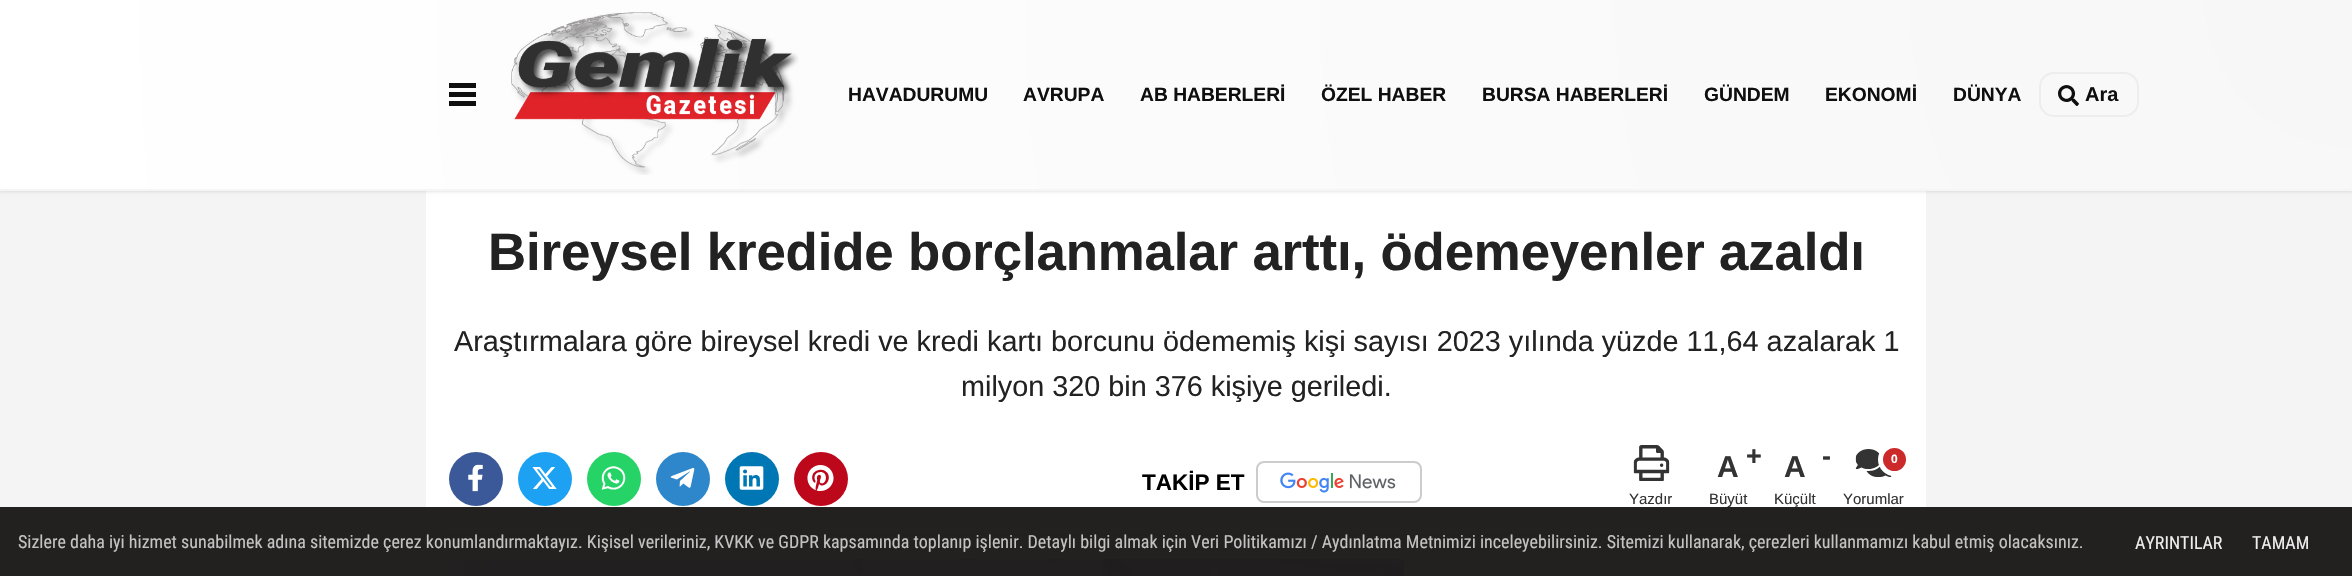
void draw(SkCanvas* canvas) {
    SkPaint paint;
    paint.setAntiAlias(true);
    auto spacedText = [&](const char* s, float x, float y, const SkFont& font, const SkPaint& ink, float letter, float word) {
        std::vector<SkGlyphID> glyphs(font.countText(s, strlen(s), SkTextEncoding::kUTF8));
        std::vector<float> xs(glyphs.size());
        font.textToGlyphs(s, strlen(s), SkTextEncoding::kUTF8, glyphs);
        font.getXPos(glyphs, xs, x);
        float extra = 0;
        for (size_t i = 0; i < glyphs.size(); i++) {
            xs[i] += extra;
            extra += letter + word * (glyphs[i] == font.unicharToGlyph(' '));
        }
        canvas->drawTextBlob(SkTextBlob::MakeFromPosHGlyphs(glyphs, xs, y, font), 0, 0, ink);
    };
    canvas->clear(0xFFF4F4F4);
    paint.setColor(0xFFFFFFFF);
    canvas->drawRect(SkRect::MakeXYWH(426, 191, 1500, 385), paint);
    paint.setColor(0x1A000000);
    paint.setMaskFilter(SkMaskFilter::MakeBlur(kNormal_SkBlurStyle, 1.5f));
    canvas->drawRect(SkRect::MakeXYWH(0, 2, 2352, 190), paint);
    paint.setMaskFilter(nullptr);
    {
        const SkColor colors[] = {0xFFF7F7F7, 0xFFFFFFFF};
        const float stops[] = {0, 1};
        paint.setShader(SkGradientShader::MakeRadial({2352, 0}, 2360, colors, stops, 2, SkTileMode::kClamp));
        paint.setAlpha(255);
    }
    canvas->drawRect(SkRect::MakeXYWH(0, 0, 2352, 189), paint);
    paint.setShader(nullptr);
    paint.setColor(0xFFF5F5F5);
    canvas->drawRect(SkRect::MakeXYWH(0, 189, 2352, 2), paint);
    paint.setColor(0xFF0F0F0F);
    canvas->drawRect(SkRect::MakeXYWH(449, 83, 27, 5), paint);
    canvas->drawRect(SkRect::MakeXYWH(449, 92, 27, 5), paint);
    canvas->drawRect(SkRect::MakeXYWH(449, 101, 27, 5), paint);
    canvas->drawImageRect(SkImages::DeferredFromEncodedData(SkData::MakeFromFileName("img1.png")), SkRect::MakeXYWH(511, 12, 288, 163), SkSamplingOptions());
    SkFont font1(fontMgr->matchFamilyStyle("Liberation Sans", SkFontStyle::Bold()), 19.25f);
    font1.setSubpixel(true);
    canvas->drawString("HAVADURUMU", 848, 101, font1, paint);
    canvas->drawString("AVRUPA", 1023, 101, font1, paint);
    canvas->drawString("AB HABERLERİ", 1140, 101, font1, paint);
    canvas->drawString("ÖZEL HABER", 1321, 101, font1, paint);
    canvas->drawString("BURSA HABERLERİ", 1482, 101, font1, paint);
    canvas->drawString("GÜNDEM", 1704, 101, font1, paint);
    canvas->drawString("EKONOMİ", 1825, 101, font1, paint);
    canvas->drawString("DÜNYA", 1953, 101, font1, paint);
    paint.setStyle(SkPaint::kStroke_Style);
    paint.setStrokeWidth(2);
    paint.setColor(0xFFEDEDED);
    canvas->drawRoundRect(SkRect::MakeXYWH(2040, 73, 98, 43), 14, 14, paint);
    canvas->drawImageRect(SkImages::DeferredFromEncodedData(SkData::MakeFromFileName("img2.png")), SkRect::MakeXYWH(2058, 85, 21, 21), SkSamplingOptions());
    SkFont font2(fontMgr->matchFamilyStyle("Liberation Sans", SkFontStyle::Bold()), 20);
    font2.setSubpixel(true);
    paint.setStyle(SkPaint::kFill_Style);
    paint.setColor(0xFF0F0F0F);
    canvas->drawString("Ara", 2085, 101, font2, paint);
    SkFont font3(fontMgr->matchFamilyStyle("Liberation Sans", SkFontStyle::Bold()), 52.8f);
    font3.setSubpixel(true);
    paint.setColor(0xFF222222);
    spacedText("Bireysel kredide borçlanmalar arttı, ödemeyenler azaldı", 488, 270, font3, paint, -0.15f, 0);
    SkFont font4(fontMgr->matchFamilyStyle("Liberation Sans", SkFontStyle::Normal()), 28.8f);
    font4.setSubpixel(true);
    canvas->drawString("Araştırmalara göre bireysel kredi ve kredi kartı borcunu ödememiş kişi sayısı 2023 yılında yüzde 11,64 azalarak 1", 454, 351, font4, paint);
    canvas->drawString("milyon 320 bin 376 kişiye geriledi.", 961, 396, font4, paint);
    paint.setColor(0xFF3B5998);
    canvas->drawCircle(476, 479, 27, paint);
    canvas->drawImageRect(SkImages::DeferredFromEncodedData(SkData::MakeFromFileName("img3.png")), SkRect::MakeXYWH(468, 464, 15, 28), SkSamplingOptions());
    paint.setColor(0xFF1DA1F2);
    canvas->drawCircle(545, 479, 27, paint);
    canvas->drawImageRect(SkImages::DeferredFromEncodedData(SkData::MakeFromFileName("img4.png")), SkRect::MakeXYWH(532, 467, 25, 22), SkSamplingOptions());
    paint.setColor(0xFF25D366);
    canvas->drawCircle(614, 479, 27, paint);
    canvas->drawImageRect(SkImages::DeferredFromEncodedData(SkData::MakeFromFileName("img5.png")), SkRect::MakeXYWH(601, 466, 25, 24), SkSamplingOptions());
    paint.setColor(0xFF2E87CA);
    canvas->drawCircle(683, 479, 27, paint);
    canvas->drawImageRect(SkImages::DeferredFromEncodedData(SkData::MakeFromFileName("img6.png")), SkRect::MakeXYWH(670, 468, 25, 20), SkSamplingOptions());
    paint.setColor(0xFF0077B5);
    canvas->drawCircle(752, 479, 27, paint);
    canvas->drawImageRect(SkImages::DeferredFromEncodedData(SkData::MakeFromFileName("img7.png")), SkRect::MakeXYWH(739, 466, 25, 24), SkSamplingOptions());
    paint.setColor(0xFFBD081C);
    canvas->drawCircle(821, 479, 27, paint);
    canvas->drawImageRect(SkImages::DeferredFromEncodedData(SkData::MakeFromFileName("img8.png")), SkRect::MakeXYWH(807, 465, 27, 26), SkSamplingOptions());
    SkFont font5(fontMgr->matchFamilyStyle("Liberation Sans", SkFontStyle::Bold()), 22.5f);
    font5.setSubpixel(true);
    paint.setColor(0xFF000000);
    canvas->drawString("TAKİP ET", 1142, 490, font5, paint);
    paint.setStyle(SkPaint::kStroke_Style);
    paint.setColor(0xFFCCCCCC);
    canvas->drawRoundRect(SkRect::MakeXYWH(1257, 462, 164, 40), 7, 7, paint);
    canvas->drawImageRect(SkImages::DeferredFromEncodedData(SkData::MakeFromFileName("img9.png")), SkRect::MakeXYWH(1280, 472, 116, 21), SkSamplingOptions());
    canvas->drawImageRect(SkImages::DeferredFromEncodedData(SkData::MakeFromFileName("img10.png")), SkRect::MakeXYWH(1633, 445, 37, 36), SkSamplingOptions());
    SkFont font6(fontMgr->matchFamilyStyle("Liberation Sans", SkFontStyle::Normal()), 15);
    font6.setSubpixel(true);
    paint.setStyle(SkPaint::kFill_Style);
    paint.setColor(0xFF333333);
    canvas->drawString("Yazdır", 1629, 504, font6, paint);
    SkFont font7(fontMgr->matchFamilyStyle("Liberation Sans", SkFontStyle::Bold()), 30);
    font7.setSubpixel(true);
    canvas->drawString("A", 1717, 477, font7, paint);
    SkFont font8(fontMgr->matchFamilyStyle("Liberation Sans", SkFontStyle::Bold()), 27);
    font8.setSubpixel(true);
    canvas->drawString("+", 1746, 465, font8, paint);
    canvas->drawString("Büyüt", 1709, 504, font6, paint);
    canvas->drawString("A", 1784, 477, font7, paint);
    canvas->drawString("-", 1822, 465, font8, paint);
    canvas->drawString("Küçült", 1774, 504, font6, paint);
    canvas->drawImageRect(SkImages::DeferredFromEncodedData(SkData::MakeFromFileName("img11.png")), SkRect::MakeXYWH(1855, 449, 37, 28), SkSamplingOptions());
    paint.setColor(0xFFCC292B);
    canvas->drawCircle(1894.5f, 459.5f, 14, paint);
    paint.setStyle(SkPaint::kStroke_Style);
    paint.setStrokeWidth(5);
    paint.setColor(0xFFFFFFFF);
    canvas->drawCircle(1894.5f, 459.5f, 14, paint);
    SkFont font9(fontMgr->matchFamilyStyle("Liberation Sans", SkFontStyle::Bold()), 12);
    font9.setSubpixel(true);
    paint.setStyle(SkPaint::kFill_Style);
    canvas->drawString("0", 1891, 463, font9, paint);
    paint.setColor(0xFF333333);
    canvas->drawString("Yorumlar", 1843, 504, font6, paint);
    paint.setColor(0xFFD9D9D9);
    canvas->drawRect(SkRect::MakeXYWH(449, 534, 1455, 2), paint);
    canvas->drawImageRect(SkImages::DeferredFromEncodedData(SkData::MakeFromFileName("img12.png")), SkRect::MakeXYWH(448, 559, 956, 17), SkSamplingOptions());
    paint.setColor(0xF2171414);
    canvas->drawRect(SkRect::MakeXYWH(0, 507, 2352, 69), paint);
    SkFont font10(fontMgr->matchFamilyStyle("Roboto Condensed", SkFontStyle::Normal()), 18);
    font10.setSubpixel(true);
    paint.setColor(0xFFC4C3C3);
    canvas->drawString("Sizlere daha iyi hizmet sunabilmek adına sitemizde çerez konumlandırmaktayız. Kişisel verileriniz, KVKK ve GDPR kapsamında toplanıp işlenir. Detaylı bilgi almak için Veri Politikamızı / Aydınlatma Metnimizi inceleyebilirsiniz. Sitemizi kullanarak, çerezleri kullanmamızı kabul etmiş olacaksınız.", 18, 548, font10, paint);
    paint.setColor(0xFFEEEEEE);
    canvas->drawString("AYRINTILAR", 2135, 549, font10, paint);
    canvas->drawString("TAMAM", 2252, 549, font10, paint);
}
